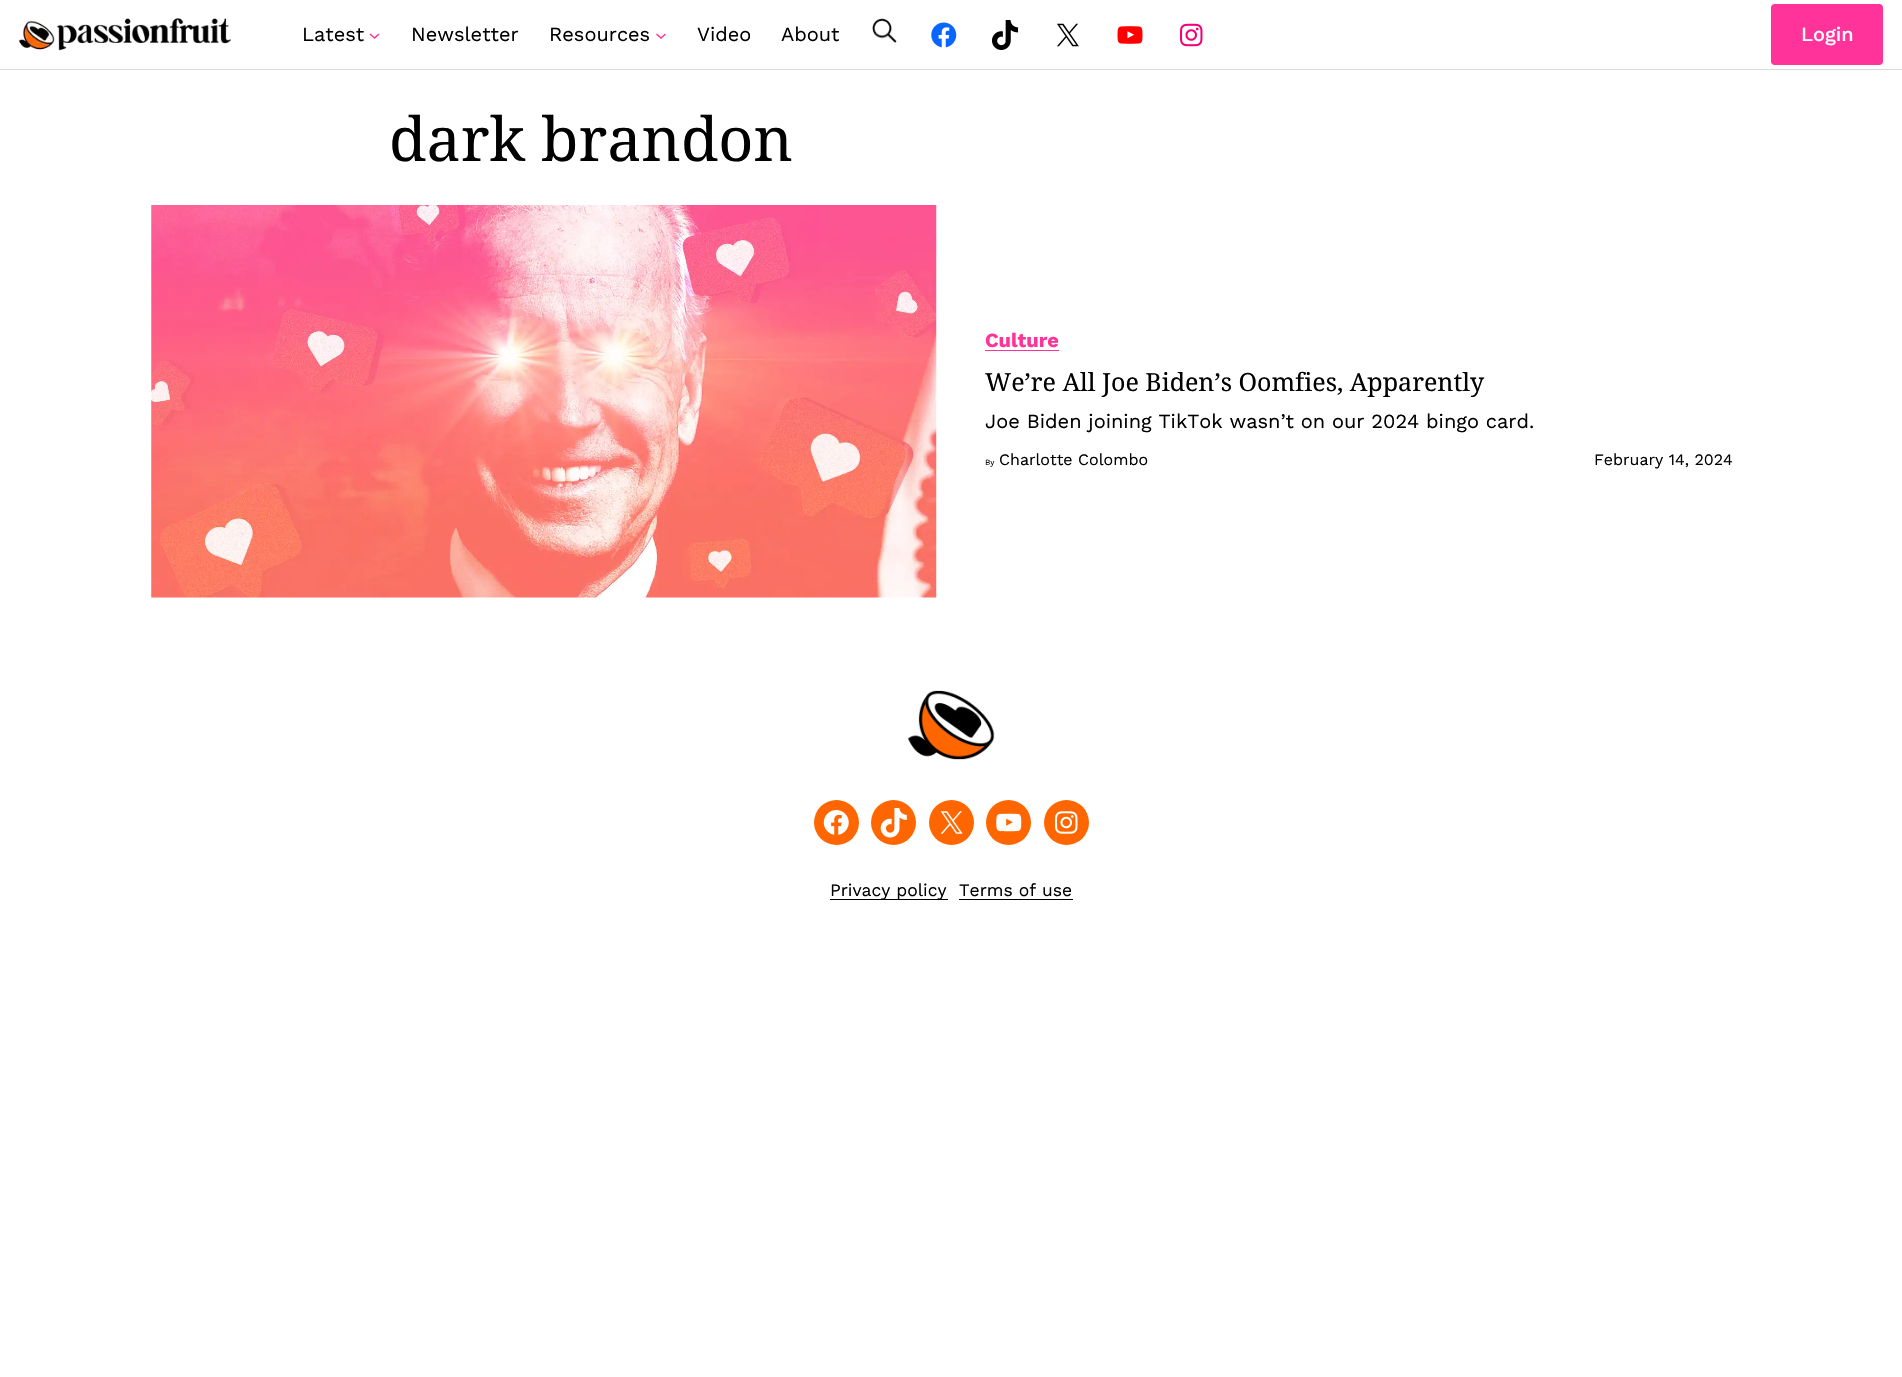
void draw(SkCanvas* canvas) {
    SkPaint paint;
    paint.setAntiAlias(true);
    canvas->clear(0xFFFFFFFF);
    paint.setColor(0xFFD9D9D9);
    canvas->drawRect(SkRect::MakeXYWH(0, 69, 1902, 1), paint);
    canvas->drawImageRect(SkImages::DeferredFromEncodedData(SkData::MakeFromFileName("img1.png")), SkRect::MakeXYWH(18, 18, 213, 33), SkSamplingOptions());
    SkFont font1(fontMgr->matchFamilyStyle("Work Sans", SkFontStyle::Normal()), 20);
    font1.setSubpixel(true);
    paint.setColor(0xFF000000);
    canvas->drawString("Latest", 302, 41, font1, paint);
    paint.setStyle(SkPaint::kStroke_Style);
    paint.setStrokeWidth(1.5f);
    paint.setColor(0xFFFF3399);
    canvas->drawPath(SkPathBuilder().moveTo(370, 34).lineTo(374.5f, 38).lineTo(379, 34).detach(), paint);
    paint.setStyle(SkPaint::kFill_Style);
    paint.setColor(0xFF000000);
    canvas->drawString("Newsletter", 411, 41, font1, paint);
    canvas->drawString("Resources", 549, 41, font1, paint);
    paint.setStyle(SkPaint::kStroke_Style);
    paint.setColor(0xFFFF3399);
    canvas->drawPath(SkPathBuilder().moveTo(656.5f, 34).lineTo(661, 38).lineTo(665.5f, 34).detach(), paint);
    paint.setStyle(SkPaint::kFill_Style);
    paint.setColor(0xFF000000);
    canvas->drawString("Video", 697, 41, font1, paint);
    canvas->drawString("About", 781, 41, font1, paint);
    canvas->drawImageRect(SkImages::DeferredFromEncodedData(SkData::MakeFromFileName("img2.png")), SkRect::MakeXYWH(872, 18, 25, 25), SkSamplingOptions());
    canvas->drawImageRect(SkImages::DeferredFromEncodedData(SkData::MakeFromFileName("img3.png")), SkRect::MakeXYWH(931, 22, 26, 26), SkSamplingOptions());
    canvas->drawImageRect(SkImages::DeferredFromEncodedData(SkData::MakeFromFileName("img4.png")), SkRect::MakeXYWH(992, 20, 27, 30), SkSamplingOptions());
    canvas->drawImageRect(SkImages::DeferredFromEncodedData(SkData::MakeFromFileName("img5.png")), SkRect::MakeXYWH(1057, 23, 22, 24), SkSamplingOptions());
    canvas->drawImageRect(SkImages::DeferredFromEncodedData(SkData::MakeFromFileName("img6.png")), SkRect::MakeXYWH(1117, 26, 26, 18), SkSamplingOptions());
    canvas->drawImageRect(SkImages::DeferredFromEncodedData(SkData::MakeFromFileName("img7.png")), SkRect::MakeXYWH(1180, 23, 23, 24), SkSamplingOptions());
    paint.setColor(0xFFFF3399);
    canvas->drawRoundRect(SkRect::MakeXYWH(1771, 4, 112, 61), 4, 4, paint);
    SkFont font2(fontMgr->matchFamilyStyle("Work Sans", SkFontStyle(500, SkFontStyle::kNormal_Width, SkFontStyle::kUpright_Slant)), 20);
    font2.setSubpixel(true);
    paint.setColor(0xFFFFFFFF);
    canvas->drawString("Login", 1801, 41, font2, paint);
    SkFont font3(fontMgr->matchFamilyStyle("Noto Serif", SkFontStyle::Normal()), 61);
    font3.setSubpixel(true);
    paint.setColor(0xFF000000);
    canvas->drawString("dark brandon", 389, 161, font3, paint);
    canvas->drawImageRect(SkImages::DeferredFromEncodedData(SkData::MakeFromFileName("img8.png")), SkRect::MakeXYWH(151, 205, 786, 393), SkSamplingOptions());
    SkFont font4(fontMgr->matchFamilyStyle("Work Sans", SkFontStyle::Bold()), 20);
    font4.setSubpixel(true);
    paint.setColor(0xFFFF3399);
    canvas->drawString("Culture", 985, 347, font4, paint);
    canvas->drawRect(SkRect::MakeXYWH(985, 350, 74, 1), paint);
    SkFont font5(fontMgr->matchFamilyStyle("Noto Serif", SkFontStyle::Normal()), 25);
    font5.setSubpixel(true);
    paint.setColor(0xFF000000);
    canvas->drawString("We’re All Joe Biden’s Oomfies, Apparently", 985, 391, font5, paint);
    canvas->drawString("Joe Biden joining TikTok wasn’t on our 2024 bingo card.", 985, 428, font1, paint);
    SkFont font6(fontMgr->matchFamilyStyle("Work Sans", SkFontStyle::Normal()), 8);
    font6.setSubpixel(true);
    canvas->drawString("By", 985, 465, font6, paint);
    SkFont font7(fontMgr->matchFamilyStyle("Work Sans", SkFontStyle::Normal()), 16);
    font7.setSubpixel(true);
    canvas->drawString("Charlotte Colombo", 999, 465, font7, paint);
    canvas->drawString("February 14, 2024", 1594, 465, font7, paint);
    canvas->drawImageRect(SkImages::DeferredFromEncodedData(SkData::MakeFromFileName("img9.png")), SkRect::MakeXYWH(908, 690, 87, 70), SkSamplingOptions());
    paint.setColor(0xFFFF6600);
    canvas->drawCircle(836.5f, 822.5f, 22.5f, paint);
    canvas->drawImageRect(SkImages::DeferredFromEncodedData(SkData::MakeFromFileName("img10.png")), SkRect::MakeXYWH(823, 810, 26, 25), SkSamplingOptions());
    canvas->drawCircle(893.5f, 822.5f, 22.5f, paint);
    canvas->drawImageRect(SkImages::DeferredFromEncodedData(SkData::MakeFromFileName("img11.png")), SkRect::MakeXYWH(880, 808, 27, 30), SkSamplingOptions());
    canvas->drawCircle(951.5f, 822.5f, 22.5f, paint);
    canvas->drawImageRect(SkImages::DeferredFromEncodedData(SkData::MakeFromFileName("img12.png")), SkRect::MakeXYWH(940, 811, 23, 23), SkSamplingOptions());
    canvas->drawCircle(1008.5f, 822.5f, 22.5f, paint);
    canvas->drawImageRect(SkImages::DeferredFromEncodedData(SkData::MakeFromFileName("img13.png")), SkRect::MakeXYWH(996, 813, 26, 19), SkSamplingOptions());
    canvas->drawCircle(1066.5f, 822.5f, 22.5f, paint);
    canvas->drawImageRect(SkImages::DeferredFromEncodedData(SkData::MakeFromFileName("img14.png")), SkRect::MakeXYWH(1055, 811, 23, 23), SkSamplingOptions());
    paint.setColor(0xFF000000);
    canvas->drawRect(SkRect::MakeXYWH(830, 899, 118, 1), paint);
    SkFont font8(fontMgr->matchFamilyStyle("Work Sans", SkFontStyle::Normal()), 17.5f);
    font8.setSubpixel(true);
    canvas->drawString("Privacy policy", 830, 896, font8, paint);
    canvas->drawString("Terms of use", 959, 896, font8, paint);
    canvas->drawRect(SkRect::MakeXYWH(959, 899, 114, 1), paint);
}
